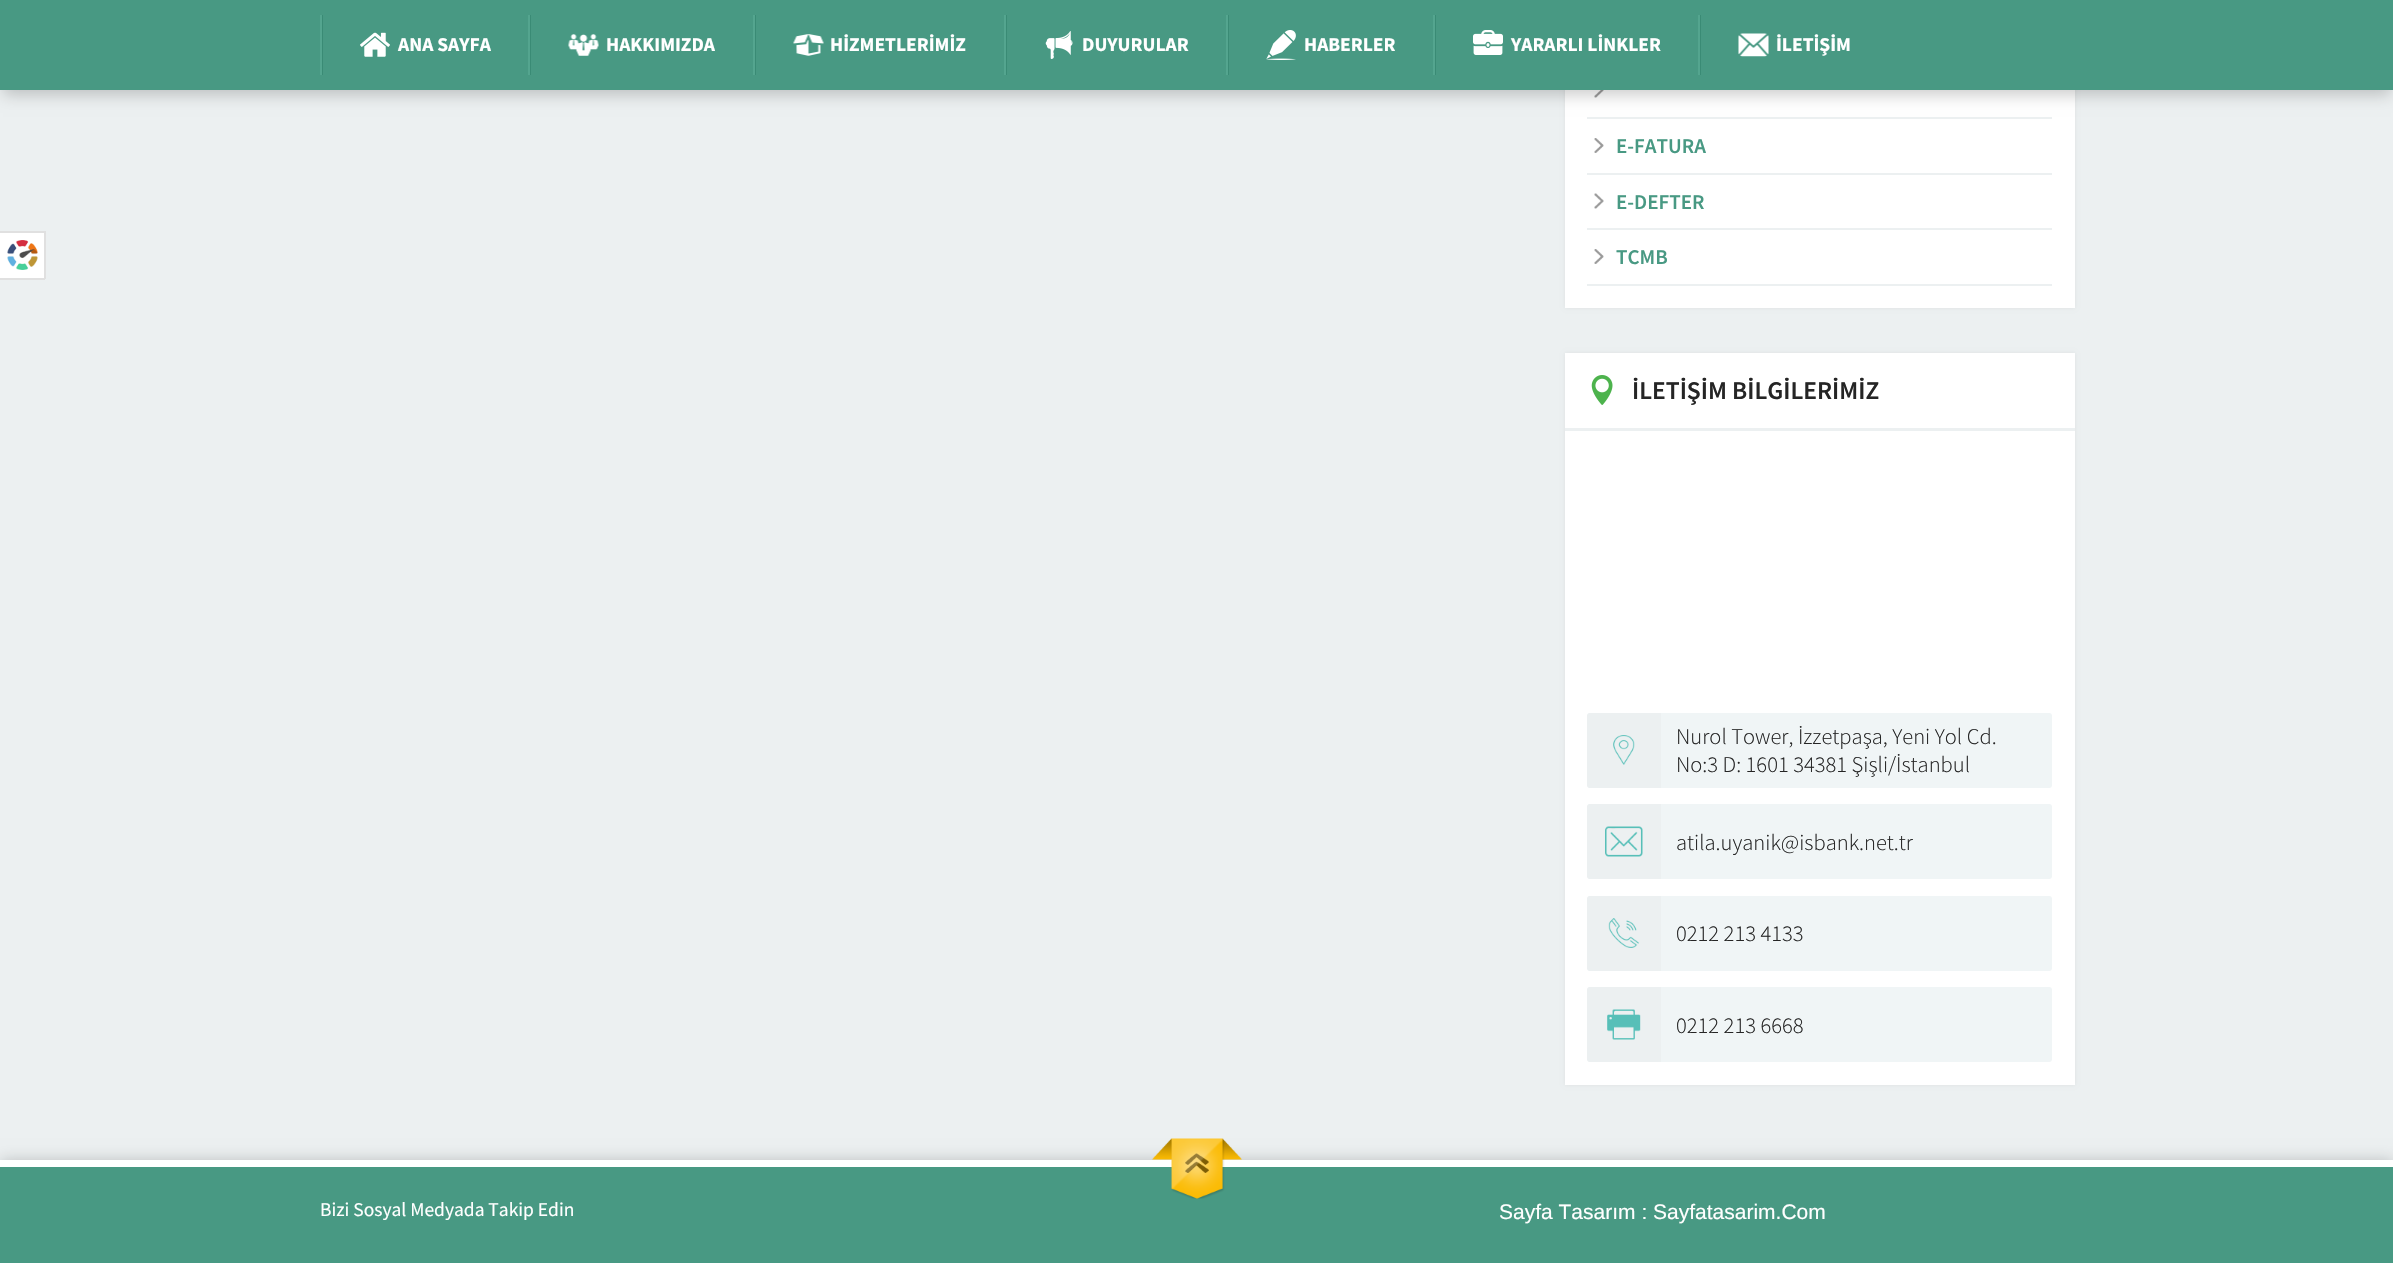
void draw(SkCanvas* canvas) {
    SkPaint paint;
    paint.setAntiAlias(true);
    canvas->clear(0xFFECF0F1);
    paint.setColor(0x0F000000);
    paint.setMaskFilter(SkMaskFilter::MakeBlur(kNormal_SkBlurStyle, 2));
    canvas->drawRect(SkRect::MakeXYWH(1565, -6, 510, 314), paint);
    paint.setMaskFilter(nullptr);
    paint.setColor(0xFFFFFFFF);
    canvas->drawRect(SkRect::MakeXYWH(1565, 90, 510, 218), paint);
    paint.setColor(0xFFECF0F1);
    canvas->drawRect(SkRect::MakeXYWH(1587, 117, 465, 2), paint);
    canvas->drawImageRect(SkImages::DeferredFromEncodedData(SkData::MakeFromFileName("img9.png")), SkRect::MakeXYWH(1594, 90, 10, 8), SkSamplingOptions());
    paint.setColor(0x33000000);
    paint.setMaskFilter(SkMaskFilter::MakeBlur(kNormal_SkBlurStyle, 7.5f));
    canvas->drawRect(SkRect::MakeXYWH(3, 11, 2388, 84), paint);
    paint.setMaskFilter(nullptr);
    paint.setColor(0xFF489983);
    canvas->drawRect(SkRect::MakeXYWH(0, 0, 2393, 90), paint);
    paint.setColor(0xFF3A8B75);
    canvas->drawRect(SkRect::MakeXYWH(322, 15, 1, 60), paint);
    paint.setColor(0xFF54A58F);
    canvas->drawRect(SkRect::MakeXYWH(320, 15, 2, 60), paint);
    canvas->drawImageRect(SkImages::DeferredFromEncodedData(SkData::MakeFromFileName("img1.png")), SkRect::MakeXYWH(360, 32, 30, 25), SkSamplingOptions());
    SkFont font1(fontMgr->matchFamilyStyle("Source Sans Pro", SkFontStyle::Bold()), 19.5f);
    font1.setSubpixel(true);
    paint.setColor(0xFFFFFFFF);
    canvas->drawString("ANA SAYFA", 398, 51, font1, paint);
    paint.setColor(0xFF3A8B75);
    canvas->drawRect(SkRect::MakeXYWH(530, 15, 1, 60), paint);
    paint.setColor(0xFF54A58F);
    canvas->drawRect(SkRect::MakeXYWH(528, 15, 2, 60), paint);
    canvas->drawImageRect(SkImages::DeferredFromEncodedData(SkData::MakeFromFileName("img2.png")), SkRect::MakeXYWH(568, 34, 31, 22), SkSamplingOptions());
    paint.setColor(0xFFFFFFFF);
    canvas->drawString("HAKKIMIZDA", 606, 51, font1, paint);
    paint.setColor(0xFF3A8B75);
    canvas->drawRect(SkRect::MakeXYWH(755, 15, 1, 60), paint);
    paint.setColor(0xFF54A58F);
    canvas->drawRect(SkRect::MakeXYWH(753, 15, 2, 60), paint);
    canvas->drawImageRect(SkImages::DeferredFromEncodedData(SkData::MakeFromFileName("img3.png")), SkRect::MakeXYWH(793, 34, 31, 22), SkSamplingOptions());
    paint.setColor(0xFFFFFFFF);
    canvas->drawString("HİZMETLERİMİZ", 830, 51, font1, paint);
    paint.setColor(0xFF3A8B75);
    canvas->drawRect(SkRect::MakeXYWH(1006, 15, 1, 60), paint);
    paint.setColor(0xFF54A58F);
    canvas->drawRect(SkRect::MakeXYWH(1004, 15, 2, 60), paint);
    canvas->drawImageRect(SkImages::DeferredFromEncodedData(SkData::MakeFromFileName("img4.png")), SkRect::MakeXYWH(1045, 31, 28, 28), SkSamplingOptions());
    paint.setColor(0xFFFFFFFF);
    canvas->drawString("DUYURULAR", 1082, 51, font1, paint);
    paint.setColor(0xFF3A8B75);
    canvas->drawRect(SkRect::MakeXYWH(1228, 15, 1, 60), paint);
    paint.setColor(0xFF54A58F);
    canvas->drawRect(SkRect::MakeXYWH(1226, 15, 2, 60), paint);
    canvas->drawImageRect(SkImages::DeferredFromEncodedData(SkData::MakeFromFileName("img5.png")), SkRect::MakeXYWH(1266, 30, 30, 30), SkSamplingOptions());
    paint.setColor(0xFFFFFFFF);
    canvas->drawString("HABERLER", 1304, 51, font1, paint);
    paint.setColor(0xFF3A8B75);
    canvas->drawRect(SkRect::MakeXYWH(1435, 15, 1, 60), paint);
    paint.setColor(0xFF54A58F);
    canvas->drawRect(SkRect::MakeXYWH(1433, 15, 2, 60), paint);
    canvas->drawImageRect(SkImages::DeferredFromEncodedData(SkData::MakeFromFileName("img6.png")), SkRect::MakeXYWH(1473, 30, 30, 25), SkSamplingOptions());
    paint.setColor(0xFFFFFFFF);
    canvas->drawString("YARARLI LİNKLER", 1511, 51, font1, paint);
    paint.setColor(0xFF3A8B75);
    canvas->drawRect(SkRect::MakeXYWH(1700, 15, 1, 60), paint);
    paint.setColor(0xFF54A58F);
    canvas->drawRect(SkRect::MakeXYWH(1698, 15, 2, 60), paint);
    canvas->drawImageRect(SkImages::DeferredFromEncodedData(SkData::MakeFromFileName("img7.png")), SkRect::MakeXYWH(1738, 33, 31, 24), SkSamplingOptions());
    paint.setColor(0xFFFFFFFF);
    canvas->drawString("İLETİŞİM", 1776, 51, font1, paint);
    canvas->drawRect(SkRect::MakeXYWH(0, 233, 44, 45), paint);
    paint.setColor(0xFFE0E0E0);
    canvas->drawRect(SkRect::MakeXYWH(0, 231, 45, 2), paint);
    canvas->drawRect(SkRect::MakeXYWH(44, 231, 2, 48), paint);
    canvas->drawRect(SkRect::MakeXYWH(0, 278, 45, 2), paint);
    canvas->drawImageRect(SkImages::DeferredFromEncodedData(SkData::MakeFromFileName("img8.png")), SkRect::MakeXYWH(7, 240, 31, 30), SkSamplingOptions());
    paint.setColor(0xFFECF0F1);
    canvas->drawRect(SkRect::MakeXYWH(1587, 173, 465, 2), paint);
    canvas->drawImageRect(SkImages::DeferredFromEncodedData(SkData::MakeFromFileName("img10.png")), SkRect::MakeXYWH(1594, 138, 10, 15), SkSamplingOptions());
    SkFont font2(fontMgr->matchFamilyStyle("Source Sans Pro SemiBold", SkFontStyle(600, SkFontStyle::kNormal_Width, SkFontStyle::kUpright_Slant)), 21);
    font2.setSubpixel(true);
    paint.setColor(0xFF489983);
    canvas->drawString("E-FATURA", 1616, 153, font2, paint);
    paint.setColor(0xFFECF0F1);
    canvas->drawRect(SkRect::MakeXYWH(1587, 228, 465, 2), paint);
    canvas->drawImageRect(SkImages::DeferredFromEncodedData(SkData::MakeFromFileName("img11.png")), SkRect::MakeXYWH(1594, 193, 10, 16), SkSamplingOptions());
    paint.setColor(0xFF489983);
    canvas->drawString("E-DEFTER", 1616, 209, font2, paint);
    paint.setColor(0xFFECF0F1);
    canvas->drawRect(SkRect::MakeXYWH(1587, 284, 465, 2), paint);
    canvas->drawImageRect(SkImages::DeferredFromEncodedData(SkData::MakeFromFileName("img10.png")), SkRect::MakeXYWH(1594, 249, 10, 15), SkSamplingOptions());
    paint.setColor(0xFF489983);
    canvas->drawString("TCMB", 1616, 264, font2, paint);
    paint.setColor(0x0F000000);
    paint.setMaskFilter(SkMaskFilter::MakeBlur(kNormal_SkBlurStyle, 2));
    canvas->drawRect(SkRect::MakeXYWH(1565, 353, 510, 732), paint);
    paint.setMaskFilter(nullptr);
    paint.setColor(0xFFFFFFFF);
    canvas->drawRect(SkRect::MakeXYWH(1565, 353, 510, 732), paint);
    paint.setColor(0xFFECF0F1);
    canvas->drawRect(SkRect::MakeXYWH(1565, 428, 510, 3), paint);
    canvas->drawImageRect(SkImages::DeferredFromEncodedData(SkData::MakeFromFileName("img12.png")), SkRect::MakeXYWH(1591, 375, 22, 30), SkSamplingOptions());
    SkFont font3(fontMgr->matchFamilyStyle("Source Sans Pro SemiBold", SkFontStyle(600, SkFontStyle::kNormal_Width, SkFontStyle::kUpright_Slant)), 25.5f);
    font3.setSubpixel(true);
    paint.setColor(0xFF252525);
    canvas->drawString("İLETİŞİM BİLGİLERİMİZ", 1632, 399, font3, paint);
    paint.setColor(0xFFF0F5F6);
    canvas->drawRoundRect(SkRect::MakeXYWH(1587, 713, 465, 75), 3, 3, paint);
    paint.setColor(0xFFECF0F1);
    canvas->drawPath(SkPathBuilder().moveTo(1590, 713).lineTo(1661, 713).lineTo(1661, 788).lineTo(1590, 788).cubicTo(1588.5f, 788, 1587, 786.5f, 1587, 785).lineTo(1587, 716).cubicTo(1587, 714.5f, 1588.5f, 713, 1590, 713).close().detach(), paint);
    canvas->drawImageRect(SkImages::DeferredFromEncodedData(SkData::MakeFromFileName("img13.png")), SkRect::MakeXYWH(1613, 735, 22, 30), SkSamplingOptions());
    SkFont font4(fontMgr->matchFamilyStyle("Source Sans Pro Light", SkFontStyle(300, SkFontStyle::kNormal_Width, SkFontStyle::kUpright_Slant)), 22.5f);
    font4.setSubpixel(true);
    paint.setColor(0xFF252525);
    canvas->drawString("Nurol Tower, İzzetpaşa, Yeni Yol Cd.", 1676, 744, font4, paint);
    canvas->drawString("No:3 D: 1601 34381 Şişli/İstanbul", 1676, 772, font4, paint);
    paint.setColor(0xFFF0F5F6);
    canvas->drawRoundRect(SkRect::MakeXYWH(1587, 804, 465, 75), 3, 3, paint);
    paint.setColor(0xFFECF0F1);
    canvas->drawPath(SkPathBuilder().moveTo(1590, 804).lineTo(1661, 804).lineTo(1661, 879).lineTo(1590, 879).cubicTo(1588.5f, 879, 1587, 877.5f, 1587, 876).lineTo(1587, 807).cubicTo(1587, 805.5f, 1588.5f, 804, 1590, 804).close().detach(), paint);
    canvas->drawImageRect(SkImages::DeferredFromEncodedData(SkData::MakeFromFileName("img14.png")), SkRect::MakeXYWH(1605, 826, 38, 31), SkSamplingOptions());
    paint.setColor(0xFF252525);
    canvas->drawString("atila.uyanik@isbank.net.tr", 1676, 850, font4, paint);
    paint.setColor(0xFFF0F5F6);
    canvas->drawRoundRect(SkRect::MakeXYWH(1587, 896, 465, 75), 3, 3, paint);
    paint.setColor(0xFFECF0F1);
    canvas->drawPath(SkPathBuilder().moveTo(1590, 896).lineTo(1661, 896).lineTo(1661, 971).lineTo(1590, 971).cubicTo(1588.5f, 971, 1587, 969.5f, 1587, 968).lineTo(1587, 899).cubicTo(1587, 897.5f, 1588.5f, 896, 1590, 896).close().detach(), paint);
    canvas->drawImageRect(SkImages::DeferredFromEncodedData(SkData::MakeFromFileName("img15.png")), SkRect::MakeXYWH(1608, 918, 31, 30), SkSamplingOptions());
    paint.setColor(0xFF252525);
    canvas->drawString("0212 213 4133", 1676, 941, font4, paint);
    paint.setColor(0xFFF0F5F6);
    canvas->drawRoundRect(SkRect::MakeXYWH(1587, 987, 465, 75), 3, 3, paint);
    paint.setColor(0xFFECF0F1);
    canvas->drawPath(SkPathBuilder().moveTo(1590, 987).lineTo(1661, 987).lineTo(1661, 1062).lineTo(1590, 1062).cubicTo(1588.5f, 1062, 1587, 1060.5f, 1587, 1059).lineTo(1587, 990).cubicTo(1587, 988.5f, 1588.5f, 987, 1590, 987).close().detach(), paint);
    canvas->drawImageRect(SkImages::DeferredFromEncodedData(SkData::MakeFromFileName("img16.png")), SkRect::MakeXYWH(1607, 1009, 34, 31), SkSamplingOptions());
    paint.setColor(0xFF252525);
    canvas->drawString("0212 213 6668", 1676, 1033, font4, paint);
    paint.setColor(0x33000000);
    paint.setMaskFilter(SkMaskFilter::MakeBlur(kNormal_SkBlurStyle, 7.5f));
    canvas->drawRect(SkRect::MakeXYWH(0, 1160, 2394, 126), paint);
    paint.setMaskFilter(nullptr);
    paint.setColor(0xFF489983);
    canvas->drawRect(SkRect::MakeXYWH(0, 1167, 2393, 96), paint);
    paint.setColor(0xFFFFFFFF);
    canvas->drawRect(SkRect::MakeXYWH(0, 1160, 2393, 7), paint);
    canvas->drawImageRect(SkImages::DeferredFromEncodedData(SkData::MakeFromFileName("img17.png")), SkRect::MakeXYWH(1152, 1138, 90, 61), SkSamplingOptions());
    SkFont font5(fontMgr->matchFamilyStyle("Source Sans Pro", SkFontStyle::Normal()), 19.5f);
    font5.setSubpixel(true);
    canvas->drawString("Bizi Sosyal Medyada Takip Edin", 320, 1216, font5, paint);
    SkFont font6(fontMgr->matchFamilyStyle("Liberation Sans", SkFontStyle::Normal()), 21);
    font6.setSubpixel(true);
    canvas->drawString("Sayfa Tasarım : Sayfatasarim.Com", 1499, 1219, font6, paint);
}
